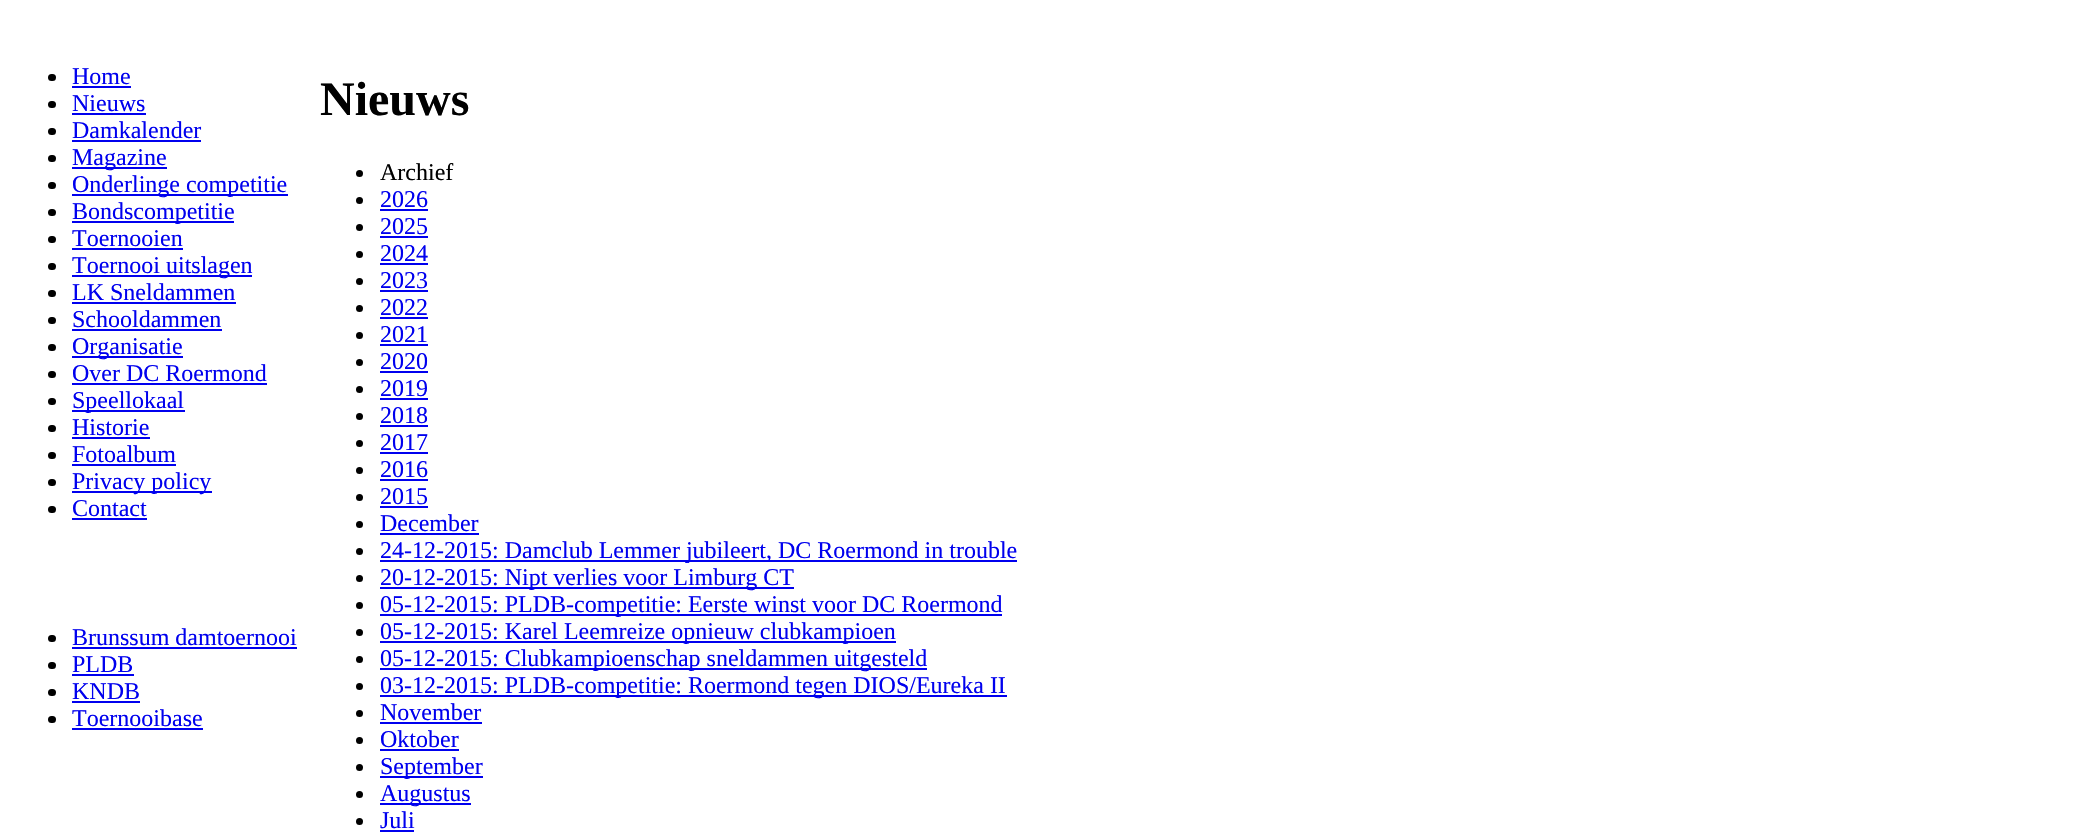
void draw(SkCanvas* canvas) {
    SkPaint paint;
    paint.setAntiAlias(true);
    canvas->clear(0xFFFFFFFF);
    paint.setColor(0xFF000000);
    canvas->drawRoundRect(SkRect::MakeXYWH(48, 74, 8, 7), 3.5f, 3.5f, paint);
    SkFont font1(fontMgr->matchFamilyStyle("Liberation Serif", SkFontStyle::Normal()), 24);
    font1.setSubpixel(true);
    paint.setColor(0xFF0000EE);
    canvas->drawString("Home", 72, 84, font1, paint);
    canvas->drawRect(SkRect::MakeXYWH(72, 86, 59, 2), paint);
    paint.setColor(0xFF000000);
    canvas->drawRoundRect(SkRect::MakeXYWH(48, 101, 8, 7), 3.5f, 3.5f, paint);
    paint.setColor(0xFF0000EE);
    canvas->drawString("Nieuws", 72, 111, font1, paint);
    canvas->drawRect(SkRect::MakeXYWH(72, 113, 74, 2), paint);
    paint.setColor(0xFF000000);
    canvas->drawRoundRect(SkRect::MakeXYWH(48, 128, 8, 7), 3.5f, 3.5f, paint);
    paint.setColor(0xFF0000EE);
    canvas->drawString("Damkalender", 72, 138, font1, paint);
    canvas->drawRect(SkRect::MakeXYWH(72, 140, 129, 2), paint);
    paint.setColor(0xFF000000);
    canvas->drawRoundRect(SkRect::MakeXYWH(48, 155, 8, 7), 3.5f, 3.5f, paint);
    paint.setColor(0xFF0000EE);
    canvas->drawRect(SkRect::MakeXYWH(72, 167, 95, 2), paint);
    canvas->drawString("Magazine", 72, 165, font1, paint);
    paint.setColor(0xFF000000);
    canvas->drawRoundRect(SkRect::MakeXYWH(48, 182, 8, 7), 3.5f, 3.5f, paint);
    paint.setColor(0xFF0000EE);
    canvas->drawRect(SkRect::MakeXYWH(72, 194, 216, 2), paint);
    canvas->drawString("Onderlinge competitie", 72, 192, font1, paint);
    paint.setColor(0xFF000000);
    canvas->drawRoundRect(SkRect::MakeXYWH(48, 209, 8, 7), 3.5f, 3.5f, paint);
    paint.setColor(0xFF0000EE);
    canvas->drawRect(SkRect::MakeXYWH(72, 221, 162, 2), paint);
    canvas->drawString("Bondscompetitie", 72, 219, font1, paint);
    paint.setColor(0xFF000000);
    canvas->drawRoundRect(SkRect::MakeXYWH(48, 236, 8, 7), 3.5f, 3.5f, paint);
    paint.setColor(0xFF0000EE);
    canvas->drawString("Toernooien", 72, 246, font1, paint);
    canvas->drawRect(SkRect::MakeXYWH(72, 248, 111, 2), paint);
    paint.setColor(0xFF000000);
    canvas->drawRoundRect(SkRect::MakeXYWH(48, 263, 8, 7), 3.5f, 3.5f, paint);
    paint.setColor(0xFF0000EE);
    canvas->drawRect(SkRect::MakeXYWH(72, 275, 180, 2), paint);
    canvas->drawString("Toernooi uitslagen", 72, 273, font1, paint);
    paint.setColor(0xFF000000);
    canvas->drawRoundRect(SkRect::MakeXYWH(48, 290, 8, 7), 3.5f, 3.5f, paint);
    paint.setColor(0xFF0000EE);
    canvas->drawString("LK Sneldammen", 72, 300, font1, paint);
    canvas->drawRect(SkRect::MakeXYWH(72, 302, 164, 2), paint);
    paint.setColor(0xFF000000);
    canvas->drawRoundRect(SkRect::MakeXYWH(48, 317, 8, 7), 3.5f, 3.5f, paint);
    paint.setColor(0xFF0000EE);
    canvas->drawString("Schooldammen", 72, 327, font1, paint);
    canvas->drawRect(SkRect::MakeXYWH(72, 329, 150, 2), paint);
    paint.setColor(0xFF000000);
    canvas->drawRoundRect(SkRect::MakeXYWH(48, 344, 8, 7), 3.5f, 3.5f, paint);
    paint.setColor(0xFF0000EE);
    canvas->drawRect(SkRect::MakeXYWH(72, 356, 111, 2), paint);
    canvas->drawString("Organisatie", 72, 354, font1, paint);
    paint.setColor(0xFF000000);
    canvas->drawRoundRect(SkRect::MakeXYWH(48, 371, 8, 7), 3.5f, 3.5f, paint);
    paint.setColor(0xFF0000EE);
    canvas->drawString("Over DC Roermond", 72, 381, font1, paint);
    canvas->drawRect(SkRect::MakeXYWH(72, 383, 195, 2), paint);
    paint.setColor(0xFF000000);
    canvas->drawRoundRect(SkRect::MakeXYWH(48, 398, 8, 7), 3.5f, 3.5f, paint);
    paint.setColor(0xFF0000EE);
    canvas->drawRect(SkRect::MakeXYWH(72, 410, 113, 2), paint);
    canvas->drawString("Speellokaal", 72, 408, font1, paint);
    paint.setColor(0xFF000000);
    canvas->drawRoundRect(SkRect::MakeXYWH(48, 425, 8, 7), 3.5f, 3.5f, paint);
    paint.setColor(0xFF0000EE);
    canvas->drawString("Historie", 72, 435, font1, paint);
    canvas->drawRect(SkRect::MakeXYWH(72, 437, 78, 2), paint);
    paint.setColor(0xFF000000);
    canvas->drawRoundRect(SkRect::MakeXYWH(48, 452, 8, 7), 3.5f, 3.5f, paint);
    paint.setColor(0xFF0000EE);
    canvas->drawString("Fotoalbum", 72, 462, font1, paint);
    canvas->drawRect(SkRect::MakeXYWH(72, 464, 104, 2), paint);
    paint.setColor(0xFF000000);
    canvas->drawRoundRect(SkRect::MakeXYWH(48, 479, 8, 7), 3.5f, 3.5f, paint);
    paint.setColor(0xFF0000EE);
    canvas->drawRect(SkRect::MakeXYWH(72, 491, 140, 2), paint);
    canvas->drawString("Privacy policy", 72, 489, font1, paint);
    paint.setColor(0xFF000000);
    canvas->drawRoundRect(SkRect::MakeXYWH(48, 506, 8, 7), 3.5f, 3.5f, paint);
    paint.setColor(0xFF0000EE);
    canvas->drawString("Contact", 72, 516, font1, paint);
    canvas->drawRect(SkRect::MakeXYWH(72, 518, 75, 2), paint);
    paint.setColor(0xFF000000);
    canvas->drawRoundRect(SkRect::MakeXYWH(48, 635, 8, 7), 3.5f, 3.5f, paint);
    paint.setColor(0xFF0000EE);
    canvas->drawString("Brunssum damtoernooi", 72, 645, font1, paint);
    canvas->drawRect(SkRect::MakeXYWH(72, 647, 225, 2), paint);
    paint.setColor(0xFF000000);
    canvas->drawRoundRect(SkRect::MakeXYWH(48, 662, 8, 7), 3.5f, 3.5f, paint);
    paint.setColor(0xFF0000EE);
    canvas->drawString("PLDB", 72, 672, font1, paint);
    canvas->drawRect(SkRect::MakeXYWH(72, 674, 62, 2), paint);
    paint.setColor(0xFF000000);
    canvas->drawRoundRect(SkRect::MakeXYWH(48, 689, 8, 7), 3.5f, 3.5f, paint);
    paint.setColor(0xFF0000EE);
    canvas->drawString("KNDB", 72, 699, font1, paint);
    canvas->drawRect(SkRect::MakeXYWH(72, 701, 68, 2), paint);
    paint.setColor(0xFF000000);
    canvas->drawRoundRect(SkRect::MakeXYWH(48, 716, 8, 7), 3.5f, 3.5f, paint);
    paint.setColor(0xFF0000EE);
    canvas->drawString("Toernooibase", 72, 726, font1, paint);
    canvas->drawRect(SkRect::MakeXYWH(72, 728, 131, 2), paint);
    SkFont font2(fontMgr->matchFamilyStyle("Liberation Serif", SkFontStyle::Bold()), 48);
    font2.setSubpixel(true);
    paint.setColor(0xFF000000);
    canvas->drawString("Nieuws", 320, 115, font2, paint);
    canvas->drawCircle(359.5f, 173.5f, 3.5f, paint);
    canvas->drawString("Archief", 380, 180, font1, paint);
    canvas->drawCircle(359.5f, 200.5f, 3.5f, paint);
    paint.setColor(0xFF0000EE);
    canvas->drawString("2026", 380, 207, font1, paint);
    canvas->drawRect(SkRect::MakeXYWH(380, 209, 48, 2), paint);
    paint.setColor(0xFF000000);
    canvas->drawCircle(359.5f, 227.5f, 3.5f, paint);
    paint.setColor(0xFF0000EE);
    canvas->drawString("2025", 380, 234, font1, paint);
    canvas->drawRect(SkRect::MakeXYWH(380, 236, 48, 2), paint);
    paint.setColor(0xFF000000);
    canvas->drawCircle(359.5f, 254.5f, 3.5f, paint);
    paint.setColor(0xFF0000EE);
    canvas->drawString("2024", 380, 261, font1, paint);
    canvas->drawRect(SkRect::MakeXYWH(380, 263, 48, 2), paint);
    paint.setColor(0xFF000000);
    canvas->drawCircle(359.5f, 281.5f, 3.5f, paint);
    paint.setColor(0xFF0000EE);
    canvas->drawString("2023", 380, 288, font1, paint);
    canvas->drawRect(SkRect::MakeXYWH(380, 290, 48, 2), paint);
    paint.setColor(0xFF000000);
    canvas->drawCircle(359.5f, 308.5f, 3.5f, paint);
    paint.setColor(0xFF0000EE);
    canvas->drawString("2022", 380, 315, font1, paint);
    canvas->drawRect(SkRect::MakeXYWH(380, 317, 48, 2), paint);
    paint.setColor(0xFF000000);
    canvas->drawCircle(359.5f, 335.5f, 3.5f, paint);
    paint.setColor(0xFF0000EE);
    canvas->drawString("2021", 380, 342, font1, paint);
    canvas->drawRect(SkRect::MakeXYWH(380, 344, 48, 2), paint);
    paint.setColor(0xFF000000);
    canvas->drawCircle(359.5f, 362.5f, 3.5f, paint);
    paint.setColor(0xFF0000EE);
    canvas->drawString("2020", 380, 369, font1, paint);
    canvas->drawRect(SkRect::MakeXYWH(380, 371, 48, 2), paint);
    paint.setColor(0xFF000000);
    canvas->drawCircle(359.5f, 389.5f, 3.5f, paint);
    paint.setColor(0xFF0000EE);
    canvas->drawString("2019", 380, 396, font1, paint);
    canvas->drawRect(SkRect::MakeXYWH(380, 398, 48, 2), paint);
    paint.setColor(0xFF000000);
    canvas->drawCircle(359.5f, 416.5f, 3.5f, paint);
    paint.setColor(0xFF0000EE);
    canvas->drawString("2018", 380, 423, font1, paint);
    canvas->drawRect(SkRect::MakeXYWH(380, 425, 48, 2), paint);
    paint.setColor(0xFF000000);
    canvas->drawCircle(359.5f, 443.5f, 3.5f, paint);
    paint.setColor(0xFF0000EE);
    canvas->drawString("2017", 380, 450, font1, paint);
    canvas->drawRect(SkRect::MakeXYWH(380, 452, 48, 2), paint);
    paint.setColor(0xFF000000);
    canvas->drawCircle(359.5f, 470.5f, 3.5f, paint);
    paint.setColor(0xFF0000EE);
    canvas->drawString("2016", 380, 477, font1, paint);
    canvas->drawRect(SkRect::MakeXYWH(380, 479, 48, 2), paint);
    paint.setColor(0xFF000000);
    canvas->drawCircle(359.5f, 497.5f, 3.5f, paint);
    paint.setColor(0xFF0000EE);
    canvas->drawString("2015", 380, 504, font1, paint);
    canvas->drawRect(SkRect::MakeXYWH(380, 506, 48, 2), paint);
    paint.setColor(0xFF000000);
    canvas->drawCircle(359.5f, 524.5f, 3.5f, paint);
    paint.setColor(0xFF0000EE);
    canvas->drawString("December", 380, 531, font1, paint);
    canvas->drawRect(SkRect::MakeXYWH(380, 533, 99, 2), paint);
    paint.setColor(0xFF000000);
    canvas->drawCircle(359.5f, 551.5f, 3.5f, paint);
    paint.setColor(0xFF0000EE);
    canvas->drawRect(SkRect::MakeXYWH(380, 560, 637, 2), paint);
    canvas->drawString("24-12-2015: Damclub Lemmer jubileert, DC Roermond in trouble", 380, 558, font1, paint);
    paint.setColor(0xFF000000);
    canvas->drawCircle(359.5f, 578.5f, 3.5f, paint);
    paint.setColor(0xFF0000EE);
    canvas->drawRect(SkRect::MakeXYWH(380, 587, 414, 2), paint);
    canvas->drawString("20-12-2015: Nipt verlies voor Limburg CT", 380, 585, font1, paint);
    paint.setColor(0xFF000000);
    canvas->drawCircle(359.5f, 605.5f, 3.5f, paint);
    paint.setColor(0xFF0000EE);
    canvas->drawRect(SkRect::MakeXYWH(380, 614, 622, 2), paint);
    canvas->drawString("05-12-2015: PLDB-competitie: Eerste winst voor DC Roermond", 380, 612, font1, paint);
    paint.setColor(0xFF000000);
    canvas->drawCircle(359.5f, 632.5f, 3.5f, paint);
    paint.setColor(0xFF0000EE);
    canvas->drawRect(SkRect::MakeXYWH(380, 641, 516, 2), paint);
    canvas->drawString("05-12-2015: Karel Leemreize opnieuw clubkampioen", 380, 639, font1, paint);
    paint.setColor(0xFF000000);
    canvas->drawCircle(359.5f, 659.5f, 3.5f, paint);
    paint.setColor(0xFF0000EE);
    canvas->drawRect(SkRect::MakeXYWH(380, 668, 547, 2), paint);
    canvas->drawString("05-12-2015: Clubkampioenschap sneldammen uitgesteld", 380, 666, font1, paint);
    paint.setColor(0xFF000000);
    canvas->drawCircle(359.5f, 686.5f, 3.5f, paint);
    paint.setColor(0xFF0000EE);
    canvas->drawRect(SkRect::MakeXYWH(380, 695, 627, 2), paint);
    canvas->drawString("03-12-2015: PLDB-competitie: Roermond tegen DIOS/Eureka II", 380, 693, font1, paint);
    paint.setColor(0xFF000000);
    canvas->drawCircle(359.5f, 713.5f, 3.5f, paint);
    paint.setColor(0xFF0000EE);
    canvas->drawString("November", 380, 720, font1, paint);
    canvas->drawRect(SkRect::MakeXYWH(380, 722, 102, 2), paint);
    paint.setColor(0xFF000000);
    canvas->drawCircle(359.5f, 740.5f, 3.5f, paint);
    paint.setColor(0xFF0000EE);
    canvas->drawString("Oktober", 380, 747, font1, paint);
    canvas->drawRect(SkRect::MakeXYWH(380, 749, 79, 2), paint);
    paint.setColor(0xFF000000);
    canvas->drawCircle(359.5f, 767.5f, 3.5f, paint);
    paint.setColor(0xFF0000EE);
    canvas->drawRect(SkRect::MakeXYWH(380, 776, 103, 2), paint);
    canvas->drawString("September", 380, 774, font1, paint);
    paint.setColor(0xFF000000);
    canvas->drawCircle(359.5f, 794.5f, 3.5f, paint);
    paint.setColor(0xFF0000EE);
    canvas->drawRect(SkRect::MakeXYWH(380, 803, 91, 2), paint);
    canvas->drawString("Augustus", 380, 801, font1, paint);
    paint.setColor(0xFF000000);
    canvas->drawCircle(359.5f, 821.5f, 3.5f, paint);
    paint.setColor(0xFF0000EE);
    canvas->drawString("Juli", 380, 828, font1, paint);
    canvas->drawRect(SkRect::MakeXYWH(380, 830, 34, 2), paint);
}
